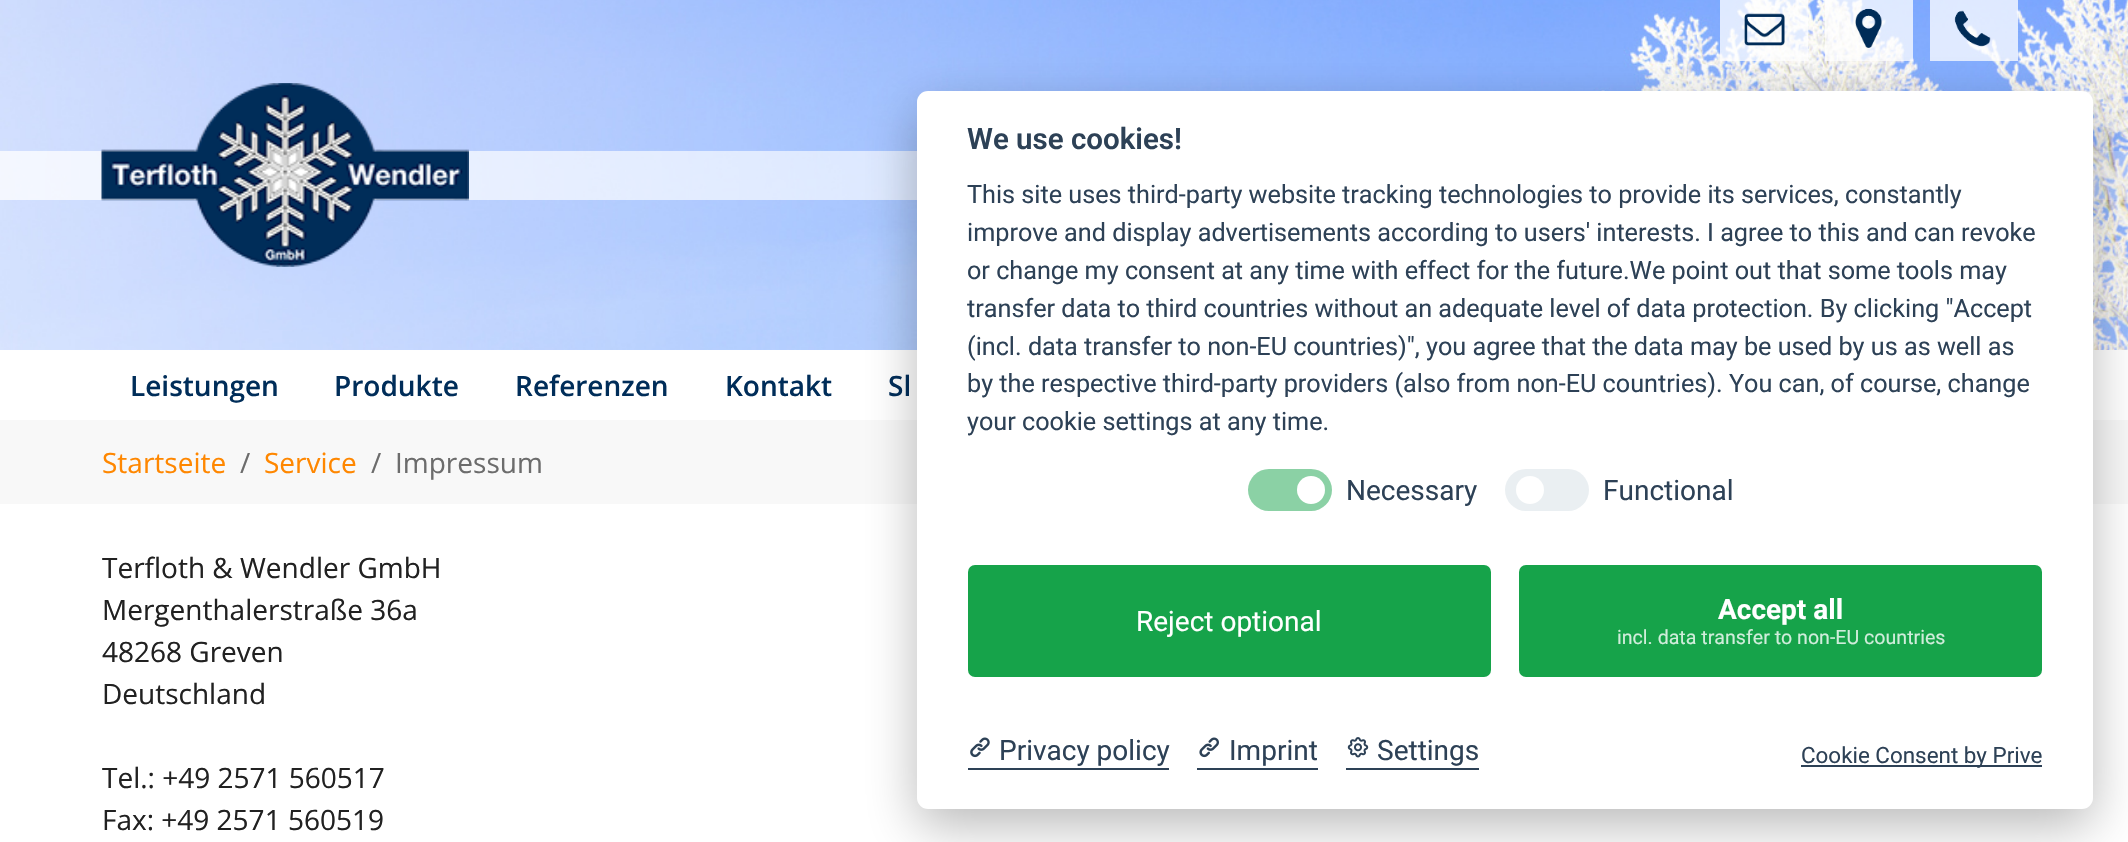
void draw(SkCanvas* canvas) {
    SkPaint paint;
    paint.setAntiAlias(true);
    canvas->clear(0xFFFFFFFF);
    canvas->drawImageRect(SkImages::DeferredFromEncodedData(SkData::MakeFromFileName("img1.png")), SkRect::MakeXYWH(0, 0, 2128, 350), SkSamplingOptions());
    canvas->drawImageRect(SkImages::DeferredFromEncodedData(SkData::MakeFromFileName("img2.png")), SkRect::MakeXYWH(101, 83, 368, 184), SkSamplingOptions());
    paint.setColor(0xBFFFFFFF);
    canvas->drawRect(SkRect::MakeXYWH(1720, 0, 88, 61), paint);
    canvas->drawImageRect(SkImages::DeferredFromEncodedData(SkData::MakeFromFileName("img3.png")), SkRect::MakeXYWH(1744, 13, 41, 33), SkSamplingOptions());
    canvas->drawRect(SkRect::MakeXYWH(1825, 0, 88, 61), paint);
    canvas->drawImageRect(SkImages::DeferredFromEncodedData(SkData::MakeFromFileName("img4.png")), SkRect::MakeXYWH(1855, 8, 27, 40), SkSamplingOptions());
    canvas->drawRect(SkRect::MakeXYWH(1930, 0, 88, 61), paint);
    canvas->drawImageRect(SkImages::DeferredFromEncodedData(SkData::MakeFromFileName("img5.png")), SkRect::MakeXYWH(1954, 10, 37, 37), SkSamplingOptions());
    SkFont font1(fontMgr->matchFamilyStyle("Open Sans", SkFontStyle(600, SkFontStyle::kNormal_Width, SkFontStyle::kUpright_Slant)), 28);
    font1.setSubpixel(true);
    paint.setColor(0xFF002D59);
    canvas->drawString("Leistungen", 130, 396, font1, paint);
    canvas->drawString("Produkte", 334, 396, font1, paint);
    canvas->drawString("Referenzen", 515, 396, font1, paint);
    canvas->drawString("Kontakt", 725, 396, font1, paint);
    canvas->drawString("Sl", 888, 396, font1, paint);
    paint.setColor(0xFFF8F8F8);
    canvas->drawRect(SkRect::MakeXYWH(0, 420, 2128, 84), paint);
    SkFont font2(fontMgr->matchFamilyStyle("Open Sans", SkFontStyle::Normal()), 28);
    font2.setSubpixel(true);
    paint.setColor(0xFFFF8700);
    canvas->drawString("Startseite", 102, 473, font2, paint);
    paint.setColor(0xFF6C6C6C);
    canvas->drawString("/", 240, 473, font2, paint);
    paint.setColor(0xFFFF8700);
    canvas->drawString("Service", 264, 473, font2, paint);
    paint.setColor(0xFF6C6C6C);
    canvas->drawString("/", 371, 473, font2, paint);
    canvas->drawString("Impressum", 395, 473, font2, paint);
    paint.setColor(0xFF212121);
    canvas->drawString("Terfloth & Wendler GmbH", 102, 578, font2, paint);
    canvas->drawString("Mergenthalerstraße 36a", 102, 620, font2, paint);
    canvas->drawString("48268 Greven", 102, 662, font2, paint);
    canvas->drawString("Deutschland", 102, 704, font2, paint);
    canvas->drawString("Tel.: +49 2571 560517", 102, 788, font2, paint);
    canvas->drawString("Fax: +49 2571 560519", 102, 830, font2, paint);
    paint.setColor(0x47020203);
    paint.setMaskFilter(SkMaskFilter::MakeBlur(kNormal_SkBlurStyle, 26));
    canvas->drawRoundRect(SkRect::MakeXYWH(917, 109, 1176, 717), 11, 11, paint);
    paint.setMaskFilter(nullptr);
    paint.setColor(0xFFFFFFFF);
    canvas->drawRoundRect(SkRect::MakeXYWH(917, 91, 1176, 718), 11, 11, paint);
    SkFont font3(fontMgr->matchFamilyStyle("Roboto", SkFontStyle(600, SkFontStyle::kNormal_Width, SkFontStyle::kUpright_Slant)), 29.5f);
    font3.setSubpixel(true);
    paint.setColor(0xFF2D4156);
    canvas->drawString("We use cookies!", 967, 149, font3, paint);
    SkFont font4(fontMgr->matchFamilyStyle("Roboto", SkFontStyle::Normal()), 25.2f);
    font4.setSubpixel(true);
    canvas->drawString("This site uses third-party website tracking technologies to provide its services, constantly", 967, 203, font4, paint);
    canvas->drawString("improve and display advertisements according to users' interests. I agree to this and can revoke", 967, 241, font4, paint);
    canvas->drawString("or change my consent at any time with effect for the future.We point out that some tools may", 967, 279, font4, paint);
    canvas->drawString("transfer data to third countries without an adequate level of data protection. By clicking \"Accept", 967, 317, font4, paint);
    canvas->drawString("(incl. data transfer to non-EU countries)\", you agree that the data may be used by us as well as", 967, 355, font4, paint);
    canvas->drawString("by the respective third-party providers (also from non-EU countries). You can, of course, change", 967, 392, font4, paint);
    canvas->drawString("your cookie settings at any time.", 967, 430, font4, paint);
    paint.setColor(0xFF8BD1A5);
    canvas->drawRoundRect(SkRect::MakeXYWH(1248, 469, 84, 42), 21, 21, paint);
    paint.setColor(0xFFFFFFFF);
    canvas->drawCircle(1311, 490, 14, paint);
    SkFont font5(fontMgr->matchFamilyStyle("Roboto", SkFontStyle::Normal()), 28);
    font5.setSubpixel(true);
    paint.setColor(0xFF2D4156);
    canvas->drawString("Necessary", 1346, 500, font5, paint);
    paint.setColor(0xFFEAEFF2);
    canvas->drawRoundRect(SkRect::MakeXYWH(1505, 469, 84, 42), 21, 21, paint);
    paint.setColor(0xFFFFFFFF);
    canvas->drawCircle(1530, 490, 14, paint);
    paint.setColor(0xFF2D4156);
    canvas->drawString("Functional", 1603, 500, font5, paint);
    paint.setColor(0xFF16A34A);
    canvas->drawRoundRect(SkRect::MakeXYWH(968, 565, 523, 112), 7, 7, paint);
    paint.setColor(0xFFFFFFFF);
    canvas->drawString("Reject optional", 1136, 631, font5, paint);
    paint.setColor(0xFF16A34A);
    canvas->drawRoundRect(SkRect::MakeXYWH(1519, 565, 523, 112), 7, 7, paint);
    SkFont font6(fontMgr->matchFamilyStyle("Roboto", SkFontStyle::Bold()), 28);
    font6.setSubpixel(true);
    paint.setColor(0xFFFFFFFF);
    canvas->drawString("Accept all", 1718, 619, font6, paint);
    SkFont font7(fontMgr->matchFamilyStyle("Roboto", SkFontStyle::Normal()), 19.6f);
    font7.setSubpixel(true);
    paint.setColor(0xFFD0EDDB);
    canvas->drawString("incl. data transfer to non-EU countries", 1617, 644, font7, paint);
    paint.setColor(0xFF2D4156);
    canvas->drawRect(SkRect::MakeXYWH(968, 768, 201, 2), paint);
    canvas->drawImageRect(SkImages::DeferredFromEncodedData(SkData::MakeFromFileName("img6.png")), SkRect::MakeXYWH(970, 737, 20, 21), SkSamplingOptions());
    canvas->drawString("Privacy policy", 999, 760, font5, paint);
    canvas->drawRect(SkRect::MakeXYWH(1197, 768, 121, 2), paint);
    canvas->drawImageRect(SkImages::DeferredFromEncodedData(SkData::MakeFromFileName("img7.png")), SkRect::MakeXYWH(1199, 737, 20, 21), SkSamplingOptions());
    canvas->drawString("Imprint", 1229, 760, font5, paint);
    canvas->drawRect(SkRect::MakeXYWH(1346, 768, 133, 2), paint);
    canvas->drawImageRect(SkImages::DeferredFromEncodedData(SkData::MakeFromFileName("img8.png")), SkRect::MakeXYWH(1347, 737, 22, 21), SkSamplingOptions());
    canvas->drawString("Settings", 1377, 760, font5, paint);
    canvas->drawRect(SkRect::MakeXYWH(1801, 765, 241, 2), paint);
    SkFont font8(fontMgr->matchFamilyStyle("Roboto", SkFontStyle::Normal()), 22.4f);
    font8.setSubpixel(true);
    canvas->drawString("Cookie Consent by Prive", 1801, 763, font8, paint);
}
